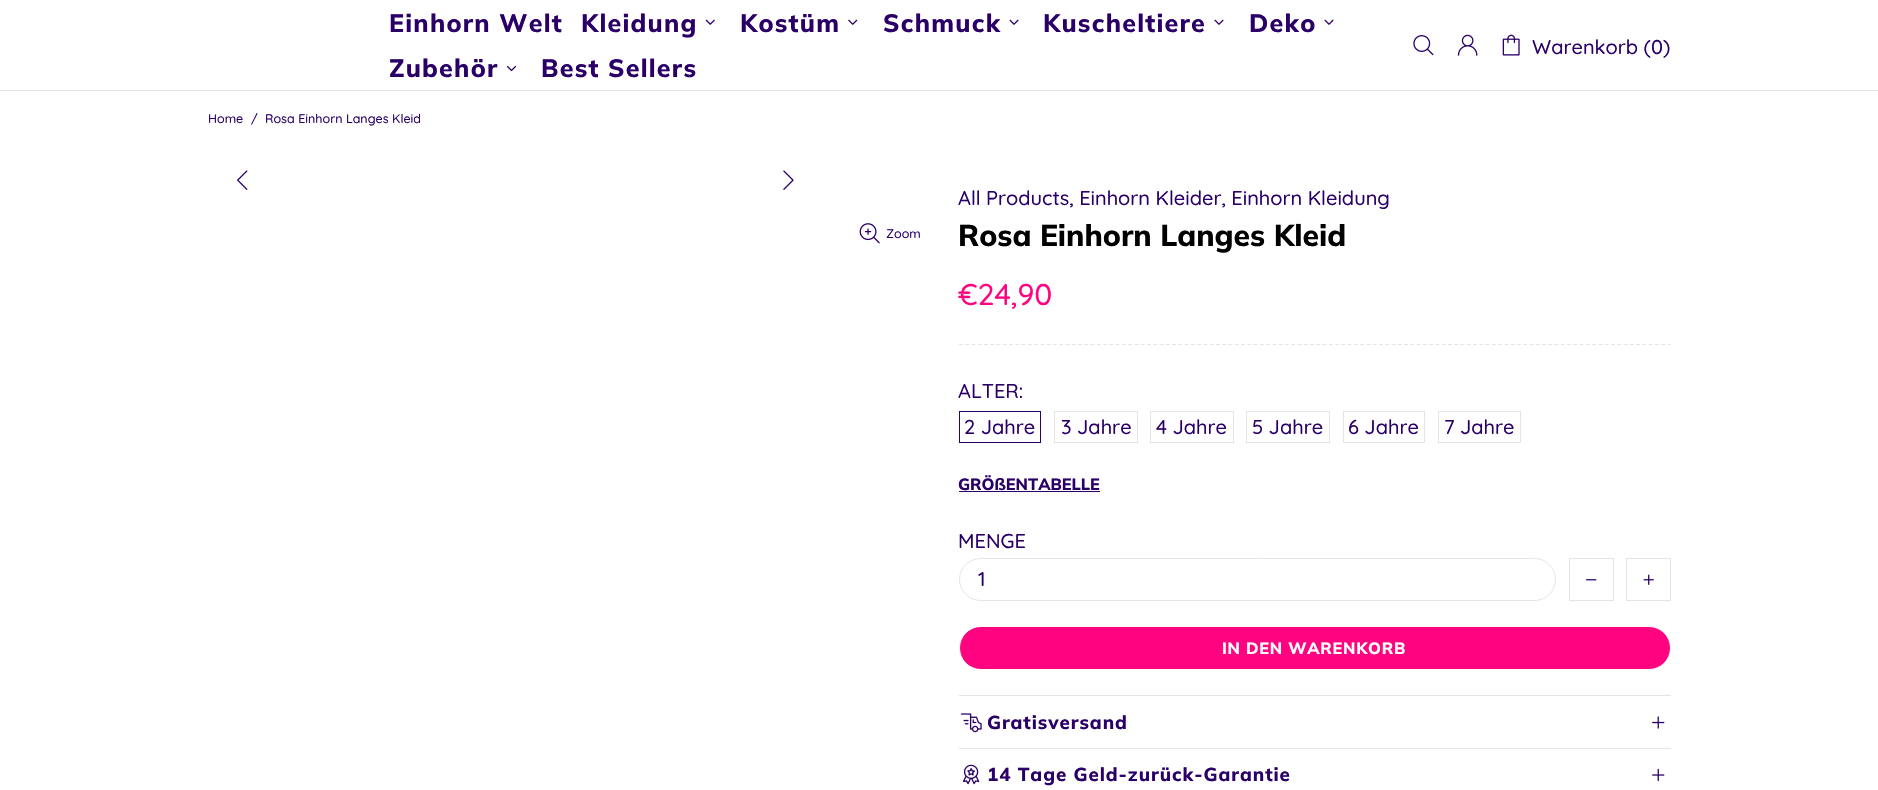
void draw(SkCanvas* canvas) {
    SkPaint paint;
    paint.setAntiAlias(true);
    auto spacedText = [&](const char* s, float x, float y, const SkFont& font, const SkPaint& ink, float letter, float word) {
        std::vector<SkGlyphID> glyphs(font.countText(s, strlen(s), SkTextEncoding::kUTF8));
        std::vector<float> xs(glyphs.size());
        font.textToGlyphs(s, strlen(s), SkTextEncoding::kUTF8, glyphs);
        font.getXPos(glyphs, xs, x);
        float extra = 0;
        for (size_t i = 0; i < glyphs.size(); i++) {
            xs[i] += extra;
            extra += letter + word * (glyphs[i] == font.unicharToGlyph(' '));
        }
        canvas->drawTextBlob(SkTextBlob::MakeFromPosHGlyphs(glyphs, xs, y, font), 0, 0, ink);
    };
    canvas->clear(0xFFFFFFFF);
    SkFont font1(fontMgr->matchFamilyStyle("Muli", SkFontStyle(800, SkFontStyle::kNormal_Width, SkFontStyle::kUpright_Slant)), 25);
    font1.setSubpixel(true);
    paint.setColor(0xFF2A0068);
    spacedText("Einhorn Welt", 389, 32, font1, paint, 1.25f, 0);
    spacedText("Kleidung", 581, 32, font1, paint, 1.25f, 0);
    canvas->drawImageRect(SkImages::DeferredFromEncodedData(SkData::MakeFromFileName("img1.png")), SkRect::MakeXYWH(705, 19, 10, 6), SkSamplingOptions());
    spacedText("Kostüm", 740, 32, font1, paint, 1.25f, 0);
    canvas->drawImageRect(SkImages::DeferredFromEncodedData(SkData::MakeFromFileName("img2.png")), SkRect::MakeXYWH(848, 19, 10, 6), SkSamplingOptions());
    spacedText("Schmuck", 883, 32, font1, paint, 1.25f, 0);
    canvas->drawImageRect(SkImages::DeferredFromEncodedData(SkData::MakeFromFileName("img3.png")), SkRect::MakeXYWH(1009, 19, 10, 6), SkSamplingOptions());
    spacedText("Kuscheltiere", 1043, 32, font1, paint, 1.25f, 0);
    canvas->drawImageRect(SkImages::DeferredFromEncodedData(SkData::MakeFromFileName("img3.png")), SkRect::MakeXYWH(1214, 19, 10, 6), SkSamplingOptions());
    spacedText("Deko", 1249, 32, font1, paint, 1.25f, 0);
    canvas->drawImageRect(SkImages::DeferredFromEncodedData(SkData::MakeFromFileName("img3.png")), SkRect::MakeXYWH(1324, 19, 10, 6), SkSamplingOptions());
    spacedText("Zubehör", 389, 77, font1, paint, 1.25f, 0);
    canvas->drawImageRect(SkImages::DeferredFromEncodedData(SkData::MakeFromFileName("img4.png")), SkRect::MakeXYWH(507, 65, 9, 7), SkSamplingOptions());
    spacedText("Best Sellers", 541, 77, font1, paint, 1.25f, 0);
    canvas->drawImageRect(SkImages::DeferredFromEncodedData(SkData::MakeFromFileName("img5.png")), SkRect::MakeXYWH(1413, 35, 21, 21), SkSamplingOptions());
    canvas->drawImageRect(SkImages::DeferredFromEncodedData(SkData::MakeFromFileName("img6.png")), SkRect::MakeXYWH(1457, 34, 21, 22), SkSamplingOptions());
    canvas->drawImageRect(SkImages::DeferredFromEncodedData(SkData::MakeFromFileName("img7.png")), SkRect::MakeXYWH(1502, 34, 18, 22), SkSamplingOptions());
    SkFont font2(fontMgr->matchFamilyStyle("Quicksand", SkFontStyle(500, SkFontStyle::kNormal_Width, SkFontStyle::kUpright_Slant)), 20);
    font2.setSubpixel(true);
    canvas->drawString("Warenkorb (0)", 1532, 54, font2, paint);
    paint.setColor(0xFFE5E5E5);
    canvas->drawRect(SkRect::MakeXYWH(0, 90, 1878, 1), paint);
    SkFont font3(fontMgr->matchFamilyStyle("Quicksand", SkFontStyle(500, SkFontStyle::kNormal_Width, SkFontStyle::kUpright_Slant)), 12.5f);
    font3.setSubpixel(true);
    paint.setColor(0xFF2A0068);
    canvas->drawString("Home", 208, 123, font3, paint);
    canvas->drawString("/", 251, 123, font3, paint);
    canvas->drawString("Rosa Einhorn Langes Kleid", 265, 123, font3, paint);
    canvas->drawImageRect(SkImages::DeferredFromEncodedData(SkData::MakeFromFileName("img8.png")), SkRect::MakeXYWH(237, 170, 11, 20), SkSamplingOptions());
    canvas->drawImageRect(SkImages::DeferredFromEncodedData(SkData::MakeFromFileName("img9.png")), SkRect::MakeXYWH(783, 170, 11, 20), SkSamplingOptions());
    canvas->drawImageRect(SkImages::DeferredFromEncodedData(SkData::MakeFromFileName("img10.png")), SkRect::MakeXYWH(859, 223, 21, 21), SkSamplingOptions());
    canvas->drawString("Zoom", 886, 238, font3, paint);
    canvas->drawString("All Products, Einhorn Kleider, Einhorn Kleidung", 958, 205, font2, paint);
    SkFont font4(fontMgr->matchFamilyStyle("Muli", SkFontStyle(800, SkFontStyle::kNormal_Width, SkFontStyle::kUpright_Slant)), 30);
    font4.setSubpixel(true);
    paint.setColor(0xFF000000);
    canvas->drawString("Rosa Einhorn Langes Kleid", 958, 246, font4, paint);
    SkFont font5(fontMgr->matchFamilyStyle("Quicksand", SkFontStyle(500, SkFontStyle::kNormal_Width, SkFontStyle::kUpright_Slant)), 30);
    font5.setSubpixel(true);
    paint.setColor(0xFFFF0381);
    canvas->drawString("€24,90", 958, 305, font5, paint);
    paint.setStyle(SkPaint::kStroke_Style);
    paint.setStrokeWidth(1.2f);
    paint.setColor(0xFFE5E5E5);
    paint.setPathEffect(SkDashPathEffect::Make({{3.75f, 2.52f}}, 0));
    canvas->drawPath(SkPathBuilder().moveTo(959, 344.5f).lineTo(1671, 344.5f).detach(), paint);
    paint.setPathEffect(nullptr);
    paint.setStyle(SkPaint::kFill_Style);
    paint.setColor(0xFF2A0068);
    canvas->drawString("ALTER:", 958, 398, font2, paint);
    paint.setStyle(SkPaint::kStroke_Style);
    paint.setStrokeWidth(1);
    canvas->drawRect(SkRect::MakeXYWH(959.5f, 411.5f, 81, 31), paint);
    paint.setStyle(SkPaint::kFill_Style);
    canvas->drawString("2 Jahre", 964, 434, font2, paint);
    paint.setStyle(SkPaint::kStroke_Style);
    paint.setColor(0xFFE5E5E5);
    canvas->drawRect(SkRect::MakeXYWH(1054.5f, 411.5f, 83, 31), paint);
    paint.setStyle(SkPaint::kFill_Style);
    paint.setColor(0xFF2A0068);
    canvas->drawString("3 Jahre", 1061, 434, font2, paint);
    paint.setStyle(SkPaint::kStroke_Style);
    paint.setColor(0xFFE5E5E5);
    canvas->drawRect(SkRect::MakeXYWH(1150.5f, 411.5f, 83, 31), paint);
    paint.setStyle(SkPaint::kFill_Style);
    paint.setColor(0xFF2A0068);
    canvas->drawString("4 Jahre", 1156, 434, font2, paint);
    paint.setStyle(SkPaint::kStroke_Style);
    paint.setColor(0xFFE5E5E5);
    canvas->drawRect(SkRect::MakeXYWH(1246.5f, 411.5f, 83, 31), paint);
    paint.setStyle(SkPaint::kFill_Style);
    paint.setColor(0xFF2A0068);
    canvas->drawString("5 Jahre", 1252, 434, font2, paint);
    paint.setStyle(SkPaint::kStroke_Style);
    paint.setColor(0xFFE5E5E5);
    canvas->drawRect(SkRect::MakeXYWH(1343.5f, 411.5f, 81, 31), paint);
    paint.setStyle(SkPaint::kFill_Style);
    paint.setColor(0xFF2A0068);
    canvas->drawString("6 Jahre", 1348, 434, font2, paint);
    paint.setStyle(SkPaint::kStroke_Style);
    paint.setColor(0xFFE5E5E5);
    canvas->drawRect(SkRect::MakeXYWH(1438.5f, 411.5f, 82, 31), paint);
    paint.setStyle(SkPaint::kFill_Style);
    paint.setColor(0xFF2A0068);
    canvas->drawString("7 Jahre", 1444, 434, font2, paint);
    SkFont font6(fontMgr->matchFamilyStyle("Muli", SkFontStyle(800, SkFontStyle::kNormal_Width, SkFontStyle::kUpright_Slant)), 16.25f);
    font6.setSubpixel(true);
    canvas->drawString("GRÖßENTABELLE", 958, 490, font6, paint);
    canvas->drawRect(SkRect::MakeXYWH(959, 491, 141, 1), paint);
    canvas->drawString("MENGE", 958, 548, font2, paint);
    paint.setStyle(SkPaint::kStroke_Style);
    paint.setColor(0xFFE5E5E5);
    canvas->drawRoundRect(SkRect::MakeXYWH(959.5f, 558.5f, 596, 42), 21, 21, paint);
    paint.setStyle(SkPaint::kFill_Style);
    paint.setColor(0xFF2A0068);
    canvas->drawString("1", 978, 586, font2, paint);
    paint.setStyle(SkPaint::kStroke_Style);
    paint.setColor(0xFFE5E5E5);
    canvas->drawRect(SkRect::MakeXYWH(1569.5f, 558.5f, 44, 42), paint);
    canvas->drawImageRect(SkImages::DeferredFromEncodedData(SkData::MakeFromFileName("img11.png")), SkRect::MakeXYWH(1586, 579, 11, 2), SkSamplingOptions());
    canvas->drawRect(SkRect::MakeXYWH(1626.5f, 558.5f, 44, 42), paint);
    canvas->drawImageRect(SkImages::DeferredFromEncodedData(SkData::MakeFromFileName("img12.png")), SkRect::MakeXYWH(1643, 574, 11, 11), SkSamplingOptions());
    paint.setStyle(SkPaint::kFill_Style);
    paint.setColor(0xFFFF0381);
    canvas->drawRoundRect(SkRect::MakeXYWH(959.5f, 626.5f, 711, 43), 21.5f, 21.5f, paint);
    paint.setStyle(SkPaint::kStroke_Style);
    paint.setColor(0xFFFFFFFF);
    canvas->drawRoundRect(SkRect::MakeXYWH(959.5f, 626.5f, 711, 43), 21.5f, 21.5f, paint);
    paint.setStyle(SkPaint::kFill_Style);
    spacedText("IN DEN WARENKORB", 1222, 654, font6, paint, 0.75f, 0);
    paint.setColor(0xFFE5E5E5);
    canvas->drawRect(SkRect::MakeXYWH(959, 695, 712, 1), paint);
    canvas->drawImageRect(SkImages::DeferredFromEncodedData(SkData::MakeFromFileName("img13.png")), SkRect::MakeXYWH(960, 713, 22, 20), SkSamplingOptions());
    SkFont font7(fontMgr->matchFamilyStyle("Muli", SkFontStyle(800, SkFontStyle::kNormal_Width, SkFontStyle::kUpright_Slant)), 18.75f);
    font7.setSubpixel(true);
    paint.setColor(0xFF2A0068);
    spacedText("Gratisversand", 987, 729, font7, paint, 0.95f, 0);
    canvas->drawImageRect(SkImages::DeferredFromEncodedData(SkData::MakeFromFileName("img14.png")), SkRect::MakeXYWH(1652, 716, 13, 13), SkSamplingOptions());
    paint.setColor(0xFFE5E5E5);
    canvas->drawRect(SkRect::MakeXYWH(959, 748, 712, 1), paint);
    canvas->drawImageRect(SkImages::DeferredFromEncodedData(SkData::MakeFromFileName("img15.png")), SkRect::MakeXYWH(962, 764, 18, 21), SkSamplingOptions());
    paint.setColor(0xFF2A0068);
    spacedText("14 Tage Geld-zurück-Garantie", 987, 781, font7, paint, 0.95f, 0);
    canvas->drawImageRect(SkImages::DeferredFromEncodedData(SkData::MakeFromFileName("img16.png")), SkRect::MakeXYWH(1652, 768, 13, 14), SkSamplingOptions());
}
